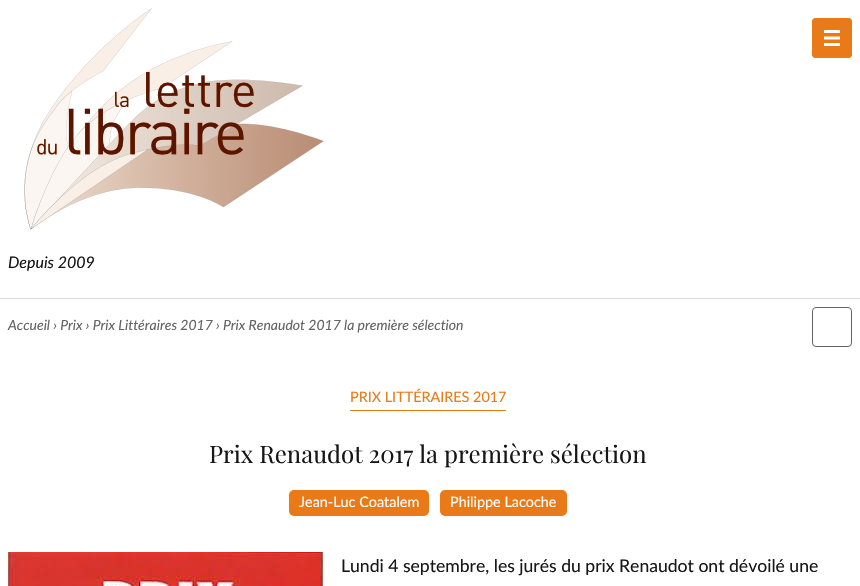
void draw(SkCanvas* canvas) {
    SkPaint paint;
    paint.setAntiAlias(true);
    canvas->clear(0xFFFFFFFF);
    paint.setColor(0xFFDCDCDC);
    canvas->drawRect(SkRect::MakeXYWH(0, 298, 860, 1), paint);
    paint.setColor(0xFFEA7A17);
    canvas->drawRoundRect(SkRect::MakeXYWH(812, 18, 40, 40), 4, 4, paint);
    canvas->drawImageRect(SkImages::DeferredFromEncodedData(SkData::MakeFromFileName("img1.png")), SkRect::MakeXYWH(824, 30, 16, 16), SkSamplingOptions());
    paint.setStyle(SkPaint::kStroke_Style);
    paint.setStrokeWidth(1);
    canvas->drawRoundRect(SkRect::MakeXYWH(812.5f, 18.5f, 39, 39), 3.5f, 3.5f, paint);
    canvas->drawImageRect(SkImages::DeferredFromEncodedData(SkData::MakeFromFileName("img2.png")), SkRect::MakeXYWH(24, 8, 300, 222), SkSamplingOptions());
    SkFont font1(fontMgr->matchFamilyStyle("Lato", SkFontStyle::Italic()), 16);
    font1.setSubpixel(true);
    paint.setStyle(SkPaint::kFill_Style);
    paint.setColor(0xFF161616);
    canvas->drawString("Depuis 2009", 8, 268, font1, paint);
    SkFont font2(fontMgr->matchFamilyStyle("Lato", SkFontStyle::Italic()), 14);
    font2.setSubpixel(true);
    paint.setColor(0xFF636363);
    canvas->drawString("Accueil › Prix › Prix Littéraires 2017 › Prix Renaudot 2017 la première sélection", 8, 330, font2, paint);
    paint.setStyle(SkPaint::kStroke_Style);
    canvas->drawRoundRect(SkRect::MakeXYWH(812.5f, 307.5f, 39, 39), 3.5f, 3.5f, paint);
    SkFont font3(fontMgr->matchFamilyStyle("Lato", SkFontStyle::Normal()), 14.4f);
    font3.setSubpixel(true);
    paint.setStyle(SkPaint::kFill_Style);
    paint.setColor(0xFFEA7A17);
    canvas->drawString("PRIX LITTÉRAIRES 2017", 350, 402, font3, paint);
    canvas->drawRect(SkRect::MakeXYWH(350, 410, 156, 1), paint);
    SkFont font4(fontMgr->matchFamilyStyle("Playfair Display", SkFontStyle::Normal()), 24);
    font4.setSubpixel(true);
    paint.setColor(0xFF161616);
    canvas->drawString("Prix Renaudot 2017 la première sélection", 209, 463, font4, paint);
    paint.setColor(0xFFEA7A17);
    canvas->drawRoundRect(SkRect::MakeXYWH(289, 490, 140, 26), 5, 5, paint);
    paint.setColor(0xFFFFFFFF);
    canvas->drawString("Jean-Luc Coatalem", 299, 507, font3, paint);
    paint.setColor(0xFFEA7A17);
    canvas->drawRoundRect(SkRect::MakeXYWH(440, 490, 127, 26), 5, 5, paint);
    paint.setColor(0xFFFFFFFF);
    canvas->drawString("Philippe Lacoche", 450, 507, font3, paint);
    canvas->drawImageRect(SkImages::DeferredFromEncodedData(SkData::MakeFromFileName("img3.png")), SkRect::MakeXYWH(8, 552, 315, 34), SkSamplingOptions());
    SkFont font5(fontMgr->matchFamilyStyle("Lato", SkFontStyle::Normal()), 17.6f);
    font5.setSubpixel(true);
    paint.setColor(0xFF161616);
    canvas->drawString("Lundi 4 septembre, les jurés du prix Renaudot ont dévoilé une", 341, 572, font5, paint);
}
